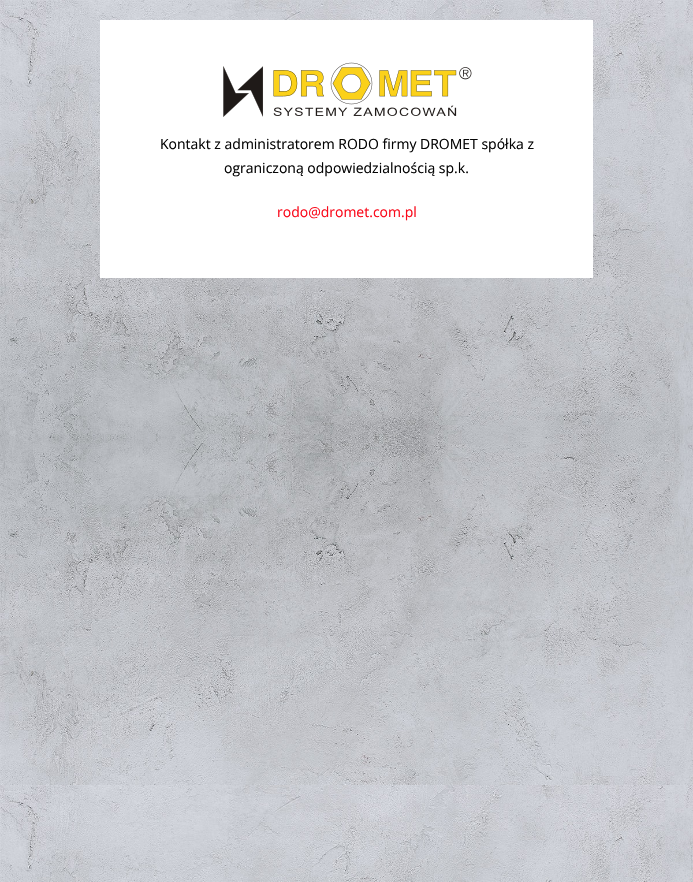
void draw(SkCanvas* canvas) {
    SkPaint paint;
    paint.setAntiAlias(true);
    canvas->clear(0xFFFFFFFF);
    canvas->drawImageRect(SkImages::DeferredFromEncodedData(SkData::MakeFromFileName("img1.png")), SkRect::MakeXYWH(0, 0, 693, 882), SkSamplingOptions());
    paint.setColor(0xFFFFFFFF);
    canvas->drawRect(SkRect::MakeXYWH(100, 20, 493, 258), paint);
    canvas->drawImageRect(SkImages::DeferredFromEncodedData(SkData::MakeFromFileName("img2.png")), SkRect::MakeXYWH(223, 62, 249, 55), SkSamplingOptions());
    SkFont font1(fontMgr->matchFamilyStyle("Open Sans", SkFontStyle::Normal()), 14);
    font1.setSubpixel(true);
    paint.setColor(0xFF050505);
    canvas->drawString("Kontakt z administratorem RODO firmy DROMET spółka z", 160, 149, font1, paint);
    canvas->drawString("ograniczoną odpowiedzialnością sp.k.", 224, 173, font1, paint);
    paint.setColor(0xFFFA0B1C);
    canvas->drawString("rodo@dromet.com.pl", 277, 217, font1, paint);
}
